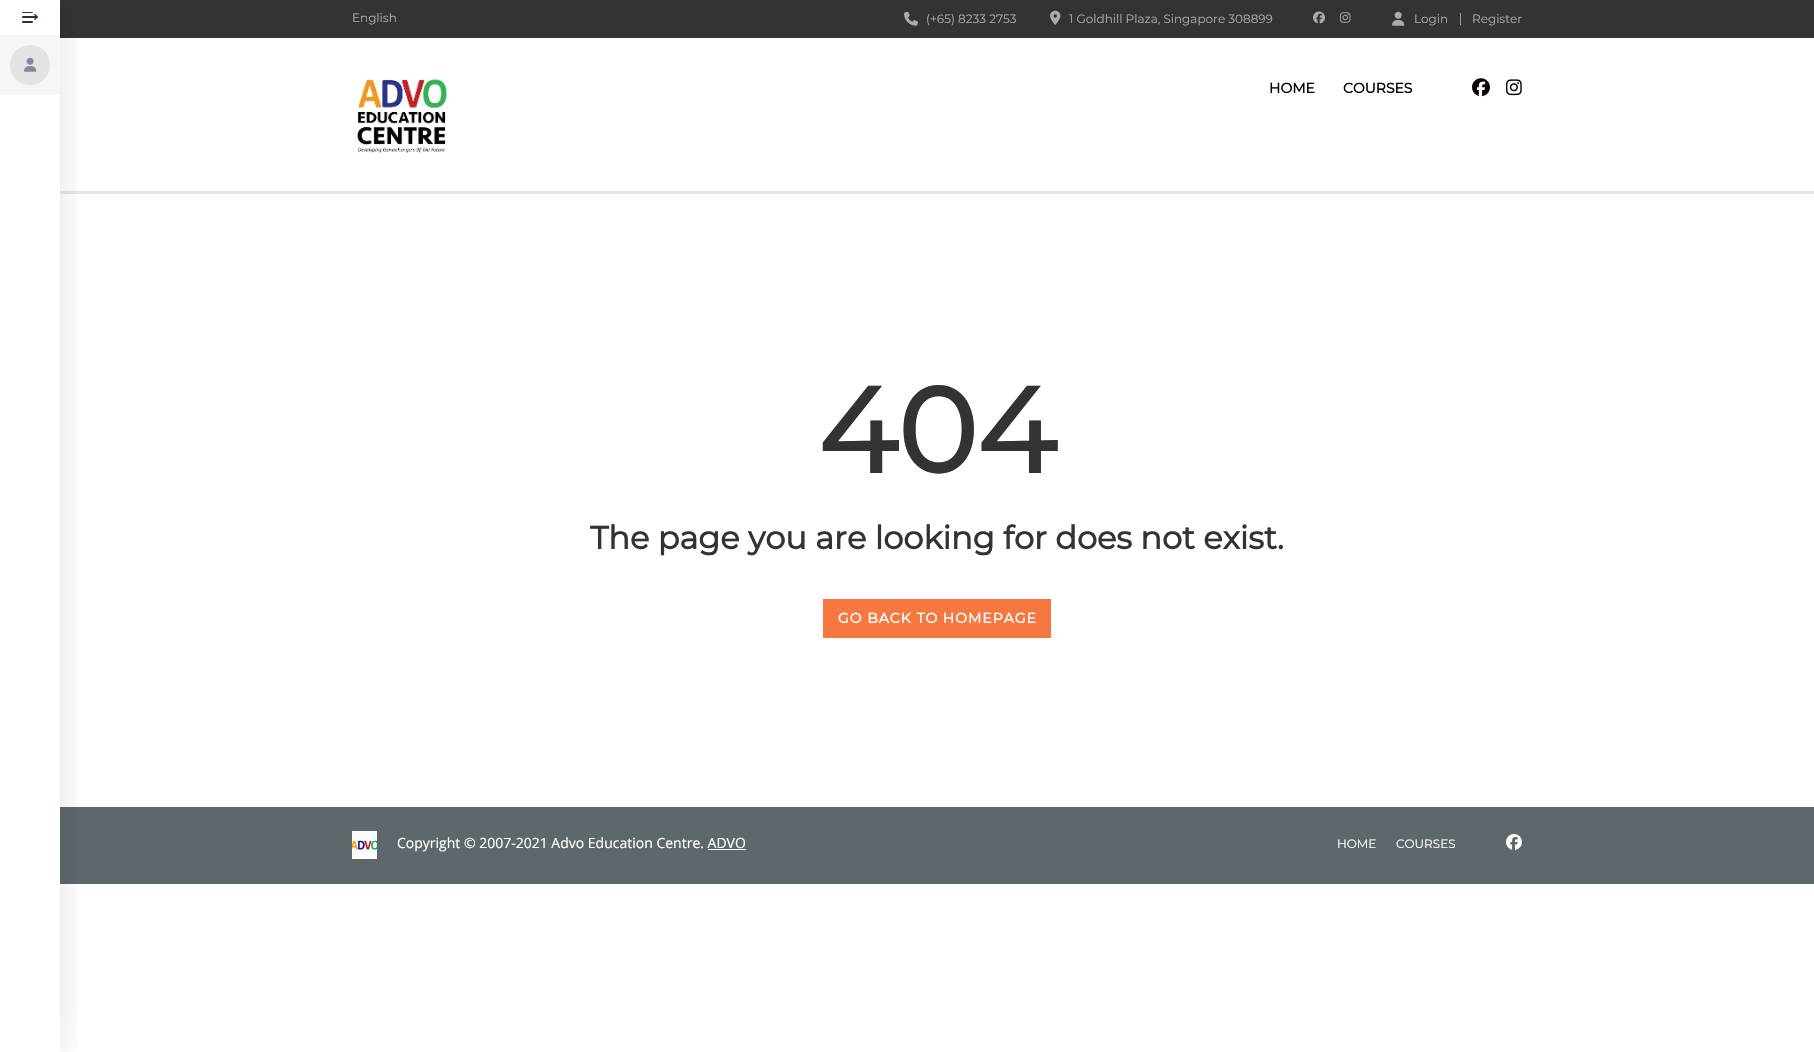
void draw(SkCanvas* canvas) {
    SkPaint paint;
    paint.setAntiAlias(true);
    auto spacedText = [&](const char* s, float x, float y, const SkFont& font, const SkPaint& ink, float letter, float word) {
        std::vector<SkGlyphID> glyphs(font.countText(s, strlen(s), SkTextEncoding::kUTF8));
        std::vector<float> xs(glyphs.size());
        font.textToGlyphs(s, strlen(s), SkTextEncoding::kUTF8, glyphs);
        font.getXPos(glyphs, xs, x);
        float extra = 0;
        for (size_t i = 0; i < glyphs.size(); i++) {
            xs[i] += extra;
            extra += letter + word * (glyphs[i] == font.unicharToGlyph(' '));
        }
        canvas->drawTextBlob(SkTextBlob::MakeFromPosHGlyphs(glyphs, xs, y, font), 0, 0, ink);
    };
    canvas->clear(0xFFFFFFFF);
    paint.setColor(0xFF333333);
    canvas->drawRect(SkRect::MakeXYWH(60, 0, 1754, 38), paint);
    paint.setColor(0xFFE6E6E6);
    canvas->drawRect(SkRect::MakeXYWH(60, 191, 1754, 3), paint);
    paint.setColor(0xFF5E676B);
    canvas->drawRect(SkRect::MakeXYWH(60, 807, 1754, 77), paint);
    canvas->save();
    canvas->clipRect(SkRect::MakeXYWH(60, 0, 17, 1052));
    paint.setColor(0x1C000000);
    paint.setMaskFilter(SkMaskFilter::MakeBlur(kNormal_SkBlurStyle, 19));
    canvas->drawRect(SkRect::MakeXYWH(0, 0, 60, 1052), paint);
    paint.setMaskFilter(nullptr);
    canvas->restore();
    canvas->drawImageRect(SkImages::DeferredFromEncodedData(SkData::MakeFromFileName("img1.png")), SkRect::MakeXYWH(22, 12, 16, 11), SkSamplingOptions());
    paint.setColor(0xFFF6F6F6);
    canvas->drawRect(SkRect::MakeXYWH(0, 35, 60, 60), paint);
    paint.setColor(0xFFE2E3E3);
    canvas->drawCircle(30, 65, 20, paint);
    canvas->drawImageRect(SkImages::DeferredFromEncodedData(SkData::MakeFromFileName("img2.png")), SkRect::MakeXYWH(24, 57, 13, 15), SkSamplingOptions());
    SkFont font1(fontMgr->matchFamilyStyle("Montserrat", SkFontStyle(100, SkFontStyle::kNormal_Width, SkFontStyle::kUpright_Slant)), 12);
    font1.setSubpixel(true);
    paint.setColor(0xFFAAAAAA);
    canvas->drawString("English", 352, 22, font1, paint);
    canvas->drawImageRect(SkImages::DeferredFromEncodedData(SkData::MakeFromFileName("img3.png")), SkRect::MakeXYWH(904, 11, 14, 15), SkSamplingOptions());
    canvas->drawString("(+65) 8233 2753", 926, 23, font1, paint);
    canvas->drawImageRect(SkImages::DeferredFromEncodedData(SkData::MakeFromFileName("img4.png")), SkRect::MakeXYWH(1050, 10, 11, 15), SkSamplingOptions());
    canvas->drawString("1 Goldhill Plaza, Singapore 308899", 1069, 23, font1, paint);
    canvas->drawImageRect(SkImages::DeferredFromEncodedData(SkData::MakeFromFileName("img5.png")), SkRect::MakeXYWH(1313, 11, 12, 13), SkSamplingOptions());
    canvas->drawImageRect(SkImages::DeferredFromEncodedData(SkData::MakeFromFileName("img6.png")), SkRect::MakeXYWH(1340, 12, 11, 11), SkSamplingOptions());
    canvas->drawImageRect(SkImages::DeferredFromEncodedData(SkData::MakeFromFileName("img7.png")), SkRect::MakeXYWH(1392, 11, 13, 15), SkSamplingOptions());
    canvas->drawString("Login", 1414, 23, font1, paint);
    paint.setColor(0xFF9A9A9A);
    canvas->drawRect(SkRect::MakeXYWH(1460, 13, 1, 12), paint);
    paint.setColor(0xFFAAAAAA);
    canvas->drawString("Register", 1472, 23, font1, paint);
    canvas->drawImageRect(SkImages::DeferredFromEncodedData(SkData::MakeFromFileName("img8.png")), SkRect::MakeXYWH(356, 78, 92, 75), SkSamplingOptions());
    SkFont font2(fontMgr->matchFamilyStyle("Montserrat", SkFontStyle::Bold()), 14);
    font2.setSubpixel(true);
    paint.setColor(0xFF0A0000);
    canvas->drawString("HOME", 1269, 93, font2, paint);
    canvas->drawString("COURSES", 1343, 93, font2, paint);
    canvas->drawImageRect(SkImages::DeferredFromEncodedData(SkData::MakeFromFileName("img9.png")), SkRect::MakeXYWH(1472, 78, 18, 19), SkSamplingOptions());
    canvas->drawImageRect(SkImages::DeferredFromEncodedData(SkData::MakeFromFileName("img10.png")), SkRect::MakeXYWH(1506, 79, 16, 17), SkSamplingOptions());
    SkFont font3(fontMgr->matchFamilyStyle("Montserrat", SkFontStyle::Bold()), 120);
    font3.setSubpixel(true);
    paint.setColor(0xFF333333);
    canvas->drawString("404", 818, 473, font3, paint);
    SkFont font4(fontMgr->matchFamilyStyle("Montserrat", SkFontStyle::Bold()), 32);
    font4.setSubpixel(true);
    canvas->drawString("The page you are looking for does not exist.", 590, 549, font4, paint);
    paint.setColor(0xFFF77740);
    canvas->drawRect(SkRect::MakeXYWH(823, 599, 228, 39), paint);
    paint.setColor(0xFFFFFFFF);
    spacedText("GO BACK TO HOMEPAGE", 838, 623, font2, paint, 1, 0);
    canvas->drawImageRect(SkImages::DeferredFromEncodedData(SkData::MakeFromFileName("img11.png")), SkRect::MakeXYWH(352, 831, 25, 28), SkSamplingOptions());
    SkFont font5(fontMgr->matchFamilyStyle("Open Sans", SkFontStyle::Normal()), 14);
    font5.setSubpixel(true);
    canvas->drawString("Copyright © 2007-2021 Advo Education Centre. ADVO", 397, 848, font5, paint);
    canvas->drawRect(SkRect::MakeXYWH(708, 849, 38, 1), paint);
    canvas->drawString("HOME", 1337, 848, font1, paint);
    canvas->drawString("COURSES", 1396, 848, font1, paint);
    canvas->drawImageRect(SkImages::DeferredFromEncodedData(SkData::MakeFromFileName("img12.png")), SkRect::MakeXYWH(1506, 834, 16, 16), SkSamplingOptions());
}
